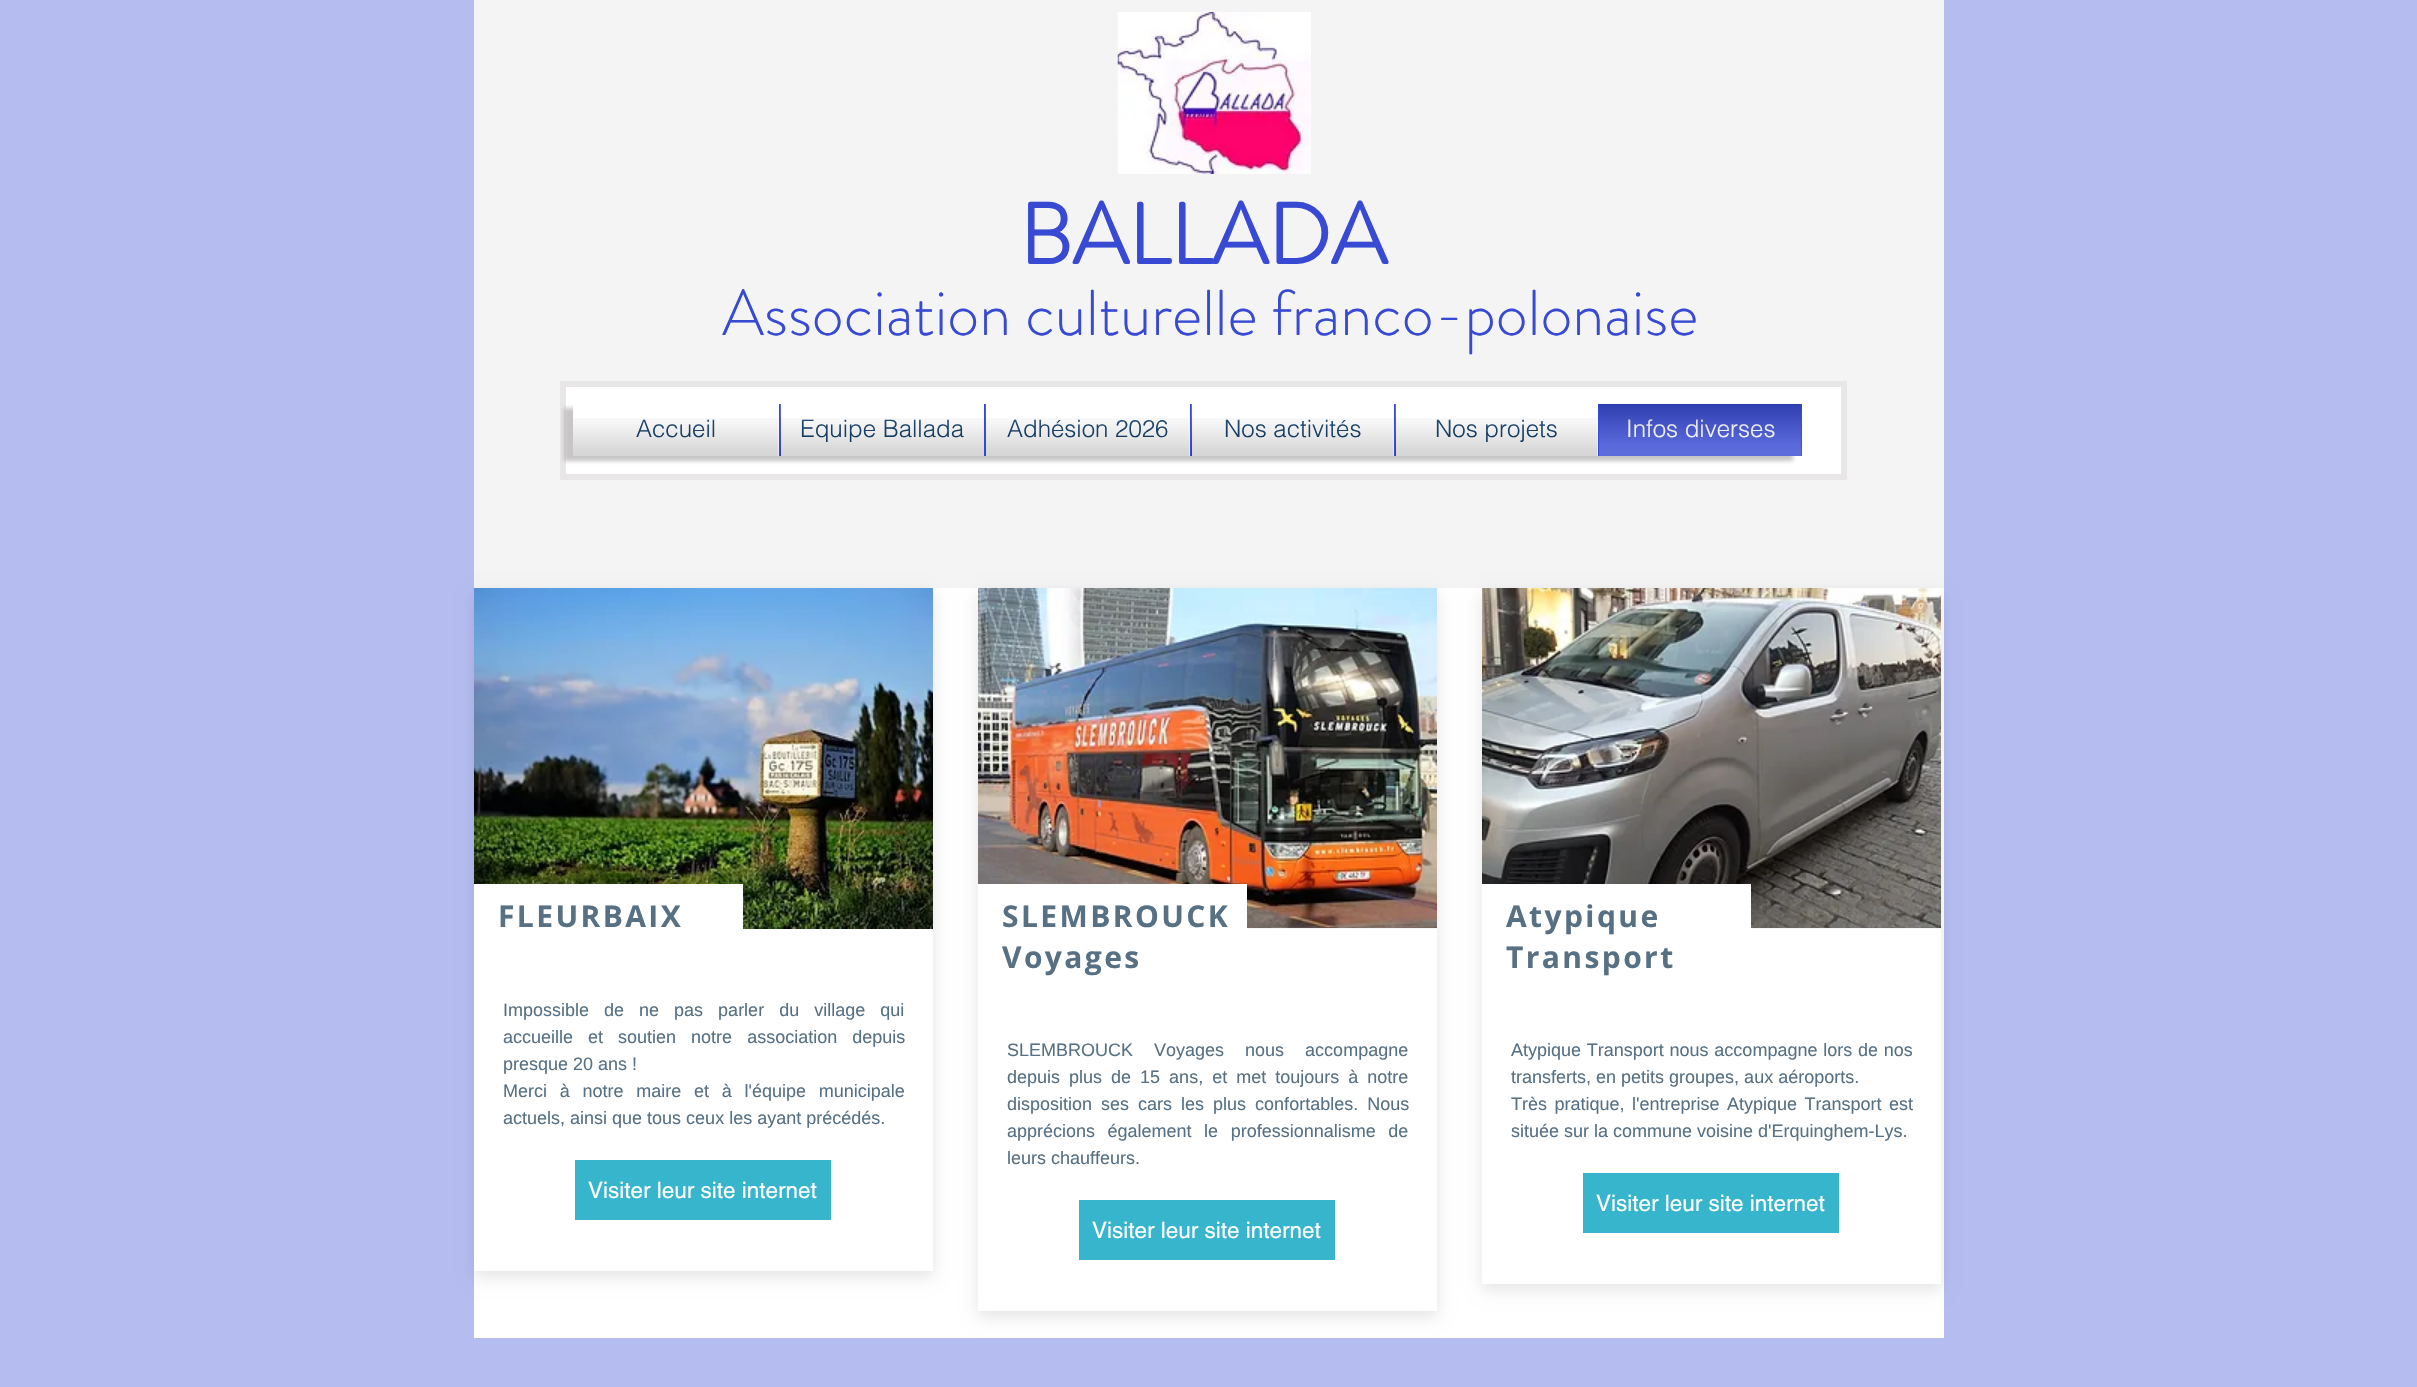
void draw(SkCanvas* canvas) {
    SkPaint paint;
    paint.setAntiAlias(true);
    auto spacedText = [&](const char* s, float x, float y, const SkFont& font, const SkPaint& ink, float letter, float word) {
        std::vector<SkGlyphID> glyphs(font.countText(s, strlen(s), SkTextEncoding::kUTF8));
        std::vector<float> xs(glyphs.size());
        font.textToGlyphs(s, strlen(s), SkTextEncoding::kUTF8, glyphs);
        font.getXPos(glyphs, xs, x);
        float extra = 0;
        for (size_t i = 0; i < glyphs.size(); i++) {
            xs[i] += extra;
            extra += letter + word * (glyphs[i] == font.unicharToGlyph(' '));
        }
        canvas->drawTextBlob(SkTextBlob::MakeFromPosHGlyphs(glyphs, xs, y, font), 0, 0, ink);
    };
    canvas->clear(0xFFB5BCF0);
    paint.setColor(0xFFF4F4F4);
    canvas->drawRect(SkRect::MakeXYWH(474, 0, 1470, 588), paint);
    canvas->drawImageRect(SkImages::DeferredFromEncodedData(SkData::MakeFromFileName("img1.png")), SkRect::MakeXYWH(1117, 12, 194, 162), SkSamplingOptions());
    SkFont font1(fontMgr->matchFamilyStyle("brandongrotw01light", SkFontStyle::Bold()), 85.5f);
    font1.setSubpixel(true);
    paint.setColor(0xFF384AD3);
    canvas->drawString("BALLADA", 1019, 264, font1, paint);
    SkFont font2(fontMgr->matchFamilyStyle("brandongrotw01light", SkFontStyle(300, SkFontStyle::kNormal_Width, SkFontStyle::kUpright_Slant)), 64.5f);
    font2.setSubpixel(true);
    canvas->drawString("Association culturelle franco-polonaise", 722, 335, font2, paint);
    paint.setColor(0xFFFFFFFF);
    canvas->drawRect(SkRect::MakeXYWH(563, 384, 1281, 93), paint);
    paint.setStyle(SkPaint::kStroke_Style);
    paint.setStrokeWidth(6);
    paint.setColor(0xFFE8E6E6);
    canvas->drawRect(SkRect::MakeXYWH(563, 384, 1281, 93), paint);
    paint.setStyle(SkPaint::kFill_Style);
    paint.setColor(0x99A29E9E);
    paint.setMaskFilter(SkMaskFilter::MakeBlur(kNormal_SkBlurStyle, 2));
    canvas->drawRect(SkRect::MakeXYWH(564, 408, 1229, 53), paint);
    paint.setMaskFilter(nullptr);
    paint.setColor(0xFFFFFFFF);
    canvas->drawRect(SkRect::MakeXYWH(573, 405, 206, 51), paint);
    SkFont font3(fontMgr->matchFamilyStyle("helvetica", SkFontStyle(300, SkFontStyle::kNormal_Width, SkFontStyle::kUpright_Slant)), 24);
    font3.setSubpixel(true);
    paint.setColor(0xFF002E5D);
    canvas->drawString("Accueil", 636, 437, font3, paint);
    canvas->drawImageRect(SkImages::DeferredFromEncodedData(SkData::MakeFromFileName("img2.png")), SkRect::MakeXYWH(636, 419, 78, 19), SkSamplingOptions());
    canvas->drawImageRect(SkImages::DeferredFromEncodedData(SkData::MakeFromFileName("img3.png")), SkRect::MakeXYWH(573, 418, 206, 38), SkSamplingOptions());
    paint.setColor(0xFFFFFFFF);
    canvas->drawRect(SkRect::MakeXYWH(781, 405, 203, 51), paint);
    paint.setColor(0xFF384AD3);
    canvas->drawRect(SkRect::MakeXYWH(779, 404, 2, 52), paint);
    paint.setColor(0xFF002E5D);
    canvas->drawString("Equipe Ballada", 800, 437, font3, paint);
    canvas->drawImageRect(SkImages::DeferredFromEncodedData(SkData::MakeFromFileName("img4.png")), SkRect::MakeXYWH(780, 404, 184, 48), SkSamplingOptions());
    canvas->drawImageRect(SkImages::DeferredFromEncodedData(SkData::MakeFromFileName("img5.png")), SkRect::MakeXYWH(780, 418, 204, 38), SkSamplingOptions());
    paint.setColor(0xFFFFFFFF);
    canvas->drawRect(SkRect::MakeXYWH(986, 405, 204, 51), paint);
    paint.setColor(0xFF384AD3);
    canvas->drawRect(SkRect::MakeXYWH(984, 404, 2, 52), paint);
    paint.setColor(0xFF002E5D);
    canvas->drawString("Adhésion 2026", 1007, 437, font3, paint);
    canvas->drawImageRect(SkImages::DeferredFromEncodedData(SkData::MakeFromFileName("img6.png")), SkRect::MakeXYWH(985, 404, 183, 41), SkSamplingOptions());
    canvas->drawImageRect(SkImages::DeferredFromEncodedData(SkData::MakeFromFileName("img7.png")), SkRect::MakeXYWH(985, 418, 205, 38), SkSamplingOptions());
    paint.setColor(0xFFFFFFFF);
    canvas->drawRect(SkRect::MakeXYWH(1192, 405, 202, 51), paint);
    paint.setColor(0xFF384AD3);
    canvas->drawRect(SkRect::MakeXYWH(1190, 404, 2, 52), paint);
    paint.setColor(0xFF002E5D);
    canvas->drawString("Nos activités", 1224, 437, font3, paint);
    canvas->drawImageRect(SkImages::DeferredFromEncodedData(SkData::MakeFromFileName("img8.png")), SkRect::MakeXYWH(1191, 404, 169, 48), SkSamplingOptions());
    canvas->drawImageRect(SkImages::DeferredFromEncodedData(SkData::MakeFromFileName("img9.png")), SkRect::MakeXYWH(1191, 418, 203, 38), SkSamplingOptions());
    paint.setColor(0xFFFFFFFF);
    canvas->drawRect(SkRect::MakeXYWH(1396, 405, 202, 51), paint);
    paint.setColor(0xFF384AD3);
    canvas->drawRect(SkRect::MakeXYWH(1394, 404, 2, 52), paint);
    paint.setColor(0xFF002E5D);
    canvas->drawString("Nos projets", 1435, 437, font3, paint);
    canvas->drawImageRect(SkImages::DeferredFromEncodedData(SkData::MakeFromFileName("img10.png")), SkRect::MakeXYWH(1395, 404, 162, 48), SkSamplingOptions());
    canvas->drawImageRect(SkImages::DeferredFromEncodedData(SkData::MakeFromFileName("img11.png")), SkRect::MakeXYWH(1395, 418, 203, 38), SkSamplingOptions());
    paint.setColor(0xFF384AD3);
    canvas->drawRect(SkRect::MakeXYWH(1598, 404, 204, 52), paint);
    paint.setColor(0xFFFFFFFF);
    canvas->drawString("Infos diverses", 1626, 437, font3, paint);
    canvas->drawImageRect(SkImages::DeferredFromEncodedData(SkData::MakeFromFileName("img12.png")), SkRect::MakeXYWH(1599, 403, 203, 39), SkSamplingOptions());
    canvas->drawImageRect(SkImages::DeferredFromEncodedData(SkData::MakeFromFileName("img13.png")), SkRect::MakeXYWH(1599, 407, 203, 49), SkSamplingOptions());
    canvas->drawRect(SkRect::MakeXYWH(474, 588, 1470, 750), paint);
    paint.setColor(0x1A000000);
    paint.setMaskFilter(SkMaskFilter::MakeBlur(kNormal_SkBlurStyle, 7.5f));
    canvas->drawRect(SkRect::MakeXYWH(474, 594, 459, 683), paint);
    paint.setMaskFilter(nullptr);
    canvas->drawImageRect(SkImages::DeferredFromEncodedData(SkData::MakeFromFileName("img14.png")), SkRect::MakeXYWH(474, 588, 459, 341), SkSamplingOptions());
    paint.setColor(0xFFFFFFFF);
    canvas->drawRect(SkRect::MakeXYWH(474, 884, 269, 45), paint);
    SkFont font4(fontMgr->matchFamilyStyle("Open Sans", SkFontStyle::Bold()), 30);
    font4.setSubpixel(true);
    paint.setColor(0xFF577083);
    spacedText("FLEURBAIX", 498, 927, font4, paint, 2.4f, 0);
    paint.setColor(0xFFFFFFFF);
    canvas->drawRect(SkRect::MakeXYWH(474, 929, 459, 342), paint);
    SkFont font5(fontMgr->matchFamilyStyle("Liberation Sans", SkFontStyle::Normal()), 18);
    font5.setSubpixel(true);
    paint.setColor(0xFF577083);
    spacedText("Impossible de ne pas parler du village qui", 503, 1016, font5, paint, 0, 10);
    spacedText("accueille et soutien notre association depuis", 503, 1043, font5, paint, 0, 10);
    canvas->drawString("presque 20 ans !", 503, 1070, font5, paint);
    spacedText("Merci à notre maire et à l'équipe municipale", 503, 1097, font5, paint, 0, 7.75f);
    canvas->drawString("actuels, ainsi que tous ceux les ayant précédés.", 503, 1124, font5, paint);
    paint.setColor(0xFF36B5CD);
    canvas->drawRect(SkRect::MakeXYWH(575, 1160, 256, 60), paint);
    SkFont font6(fontMgr->matchFamilyStyle("helvetica", SkFontStyle::Normal()), 22.5f);
    font6.setSubpixel(true);
    paint.setColor(0xFFFFFFFF);
    canvas->drawString("Visiter leur site internet", 588, 1198, font6, paint);
    canvas->save();
    canvas->clipPath(SkPathBuilder(SkPathFillType::kEvenOdd).moveTo(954, 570).lineTo(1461, 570).lineTo(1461, 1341).lineTo(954, 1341).close().moveTo(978, 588).lineTo(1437, 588).lineTo(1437, 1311).lineTo(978, 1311).close().detach(), true);
    paint.setColor(0x1A000000);
    paint.setMaskFilter(SkMaskFilter::MakeBlur(kNormal_SkBlurStyle, 7.5f));
    canvas->drawRect(SkRect::MakeXYWH(978, 594, 459, 723), paint);
    paint.setMaskFilter(nullptr);
    canvas->restore();
    canvas->drawImageRect(SkImages::DeferredFromEncodedData(SkData::MakeFromFileName("img15.png")), SkRect::MakeXYWH(978, 588, 459, 341), SkSamplingOptions());
    paint.setColor(0xFFFFFFFF);
    canvas->drawRect(SkRect::MakeXYWH(978, 884, 269, 45), paint);
    paint.setColor(0xFF577083);
    spacedText("SLEMBROUCK", 1002, 927, font4, paint, 2.4f, 0);
    spacedText("Voyages", 1002, 968, font4, paint, 2.4f, 0);
    spacedText("SLEMBROUCK Voyages nous accompagne", 1007, 1056, font5, paint, 0, 16);
    spacedText("depuis plus de 15 ans, et met toujours à notre", 1007, 1083, font5, paint, 0, 4);
    spacedText("disposition ses cars les plus confortables. Nous", 1007, 1110, font5, paint, 0, 4);
    spacedText("apprécions également le professionnalisme de", 1007, 1137, font5, paint, 0, 7.5f);
    canvas->drawString("leurs chauffeurs.", 1007, 1164, font5, paint);
    paint.setColor(0xFF36B5CD);
    canvas->drawRect(SkRect::MakeXYWH(1079, 1200, 256, 60), paint);
    paint.setColor(0xFFFFFFFF);
    canvas->drawString("Visiter leur site internet", 1092, 1238, font6, paint);
    canvas->save();
    canvas->clipPath(SkPathBuilder(SkPathFillType::kEvenOdd).moveTo(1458, 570).lineTo(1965, 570).lineTo(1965, 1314).lineTo(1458, 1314).close().moveTo(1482, 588).lineTo(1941, 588).lineTo(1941, 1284).lineTo(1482, 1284).close().detach(), true);
    paint.setColor(0x1A000000);
    paint.setMaskFilter(SkMaskFilter::MakeBlur(kNormal_SkBlurStyle, 7.5f));
    canvas->drawRect(SkRect::MakeXYWH(1482, 594, 459, 696), paint);
    paint.setMaskFilter(nullptr);
    canvas->restore();
    canvas->drawImageRect(SkImages::DeferredFromEncodedData(SkData::MakeFromFileName("img16.png")), SkRect::MakeXYWH(1482, 588, 459, 341), SkSamplingOptions());
    paint.setColor(0xFFFFFFFF);
    canvas->drawRect(SkRect::MakeXYWH(1482, 884, 269, 45), paint);
    paint.setColor(0xFF577083);
    spacedText("Atypique", 1506, 927, font4, paint, 2.4f, 0);
    spacedText("Transport", 1506, 968, font4, paint, 2.4f, 0);
    spacedText("Atypique Transport nous accompagne lors de nos", 1511, 1056, font5, paint, 0, 0.75f);
    canvas->drawString("transferts, en petits groupes, aux aéroports.", 1511, 1083, font5, paint);
    spacedText("Très pratique, l'entreprise Atypique Transport est", 1511, 1110, font5, paint, 0, 2.5f);
    canvas->drawString("située sur la commune voisine d'Erquinghem-Lys.", 1511, 1137, font5, paint);
    paint.setColor(0xFF36B5CD);
    canvas->drawRect(SkRect::MakeXYWH(1583, 1173, 256, 60), paint);
    paint.setColor(0xFFFFFFFF);
    canvas->drawString("Visiter leur site internet", 1596, 1211, font6, paint);
}
